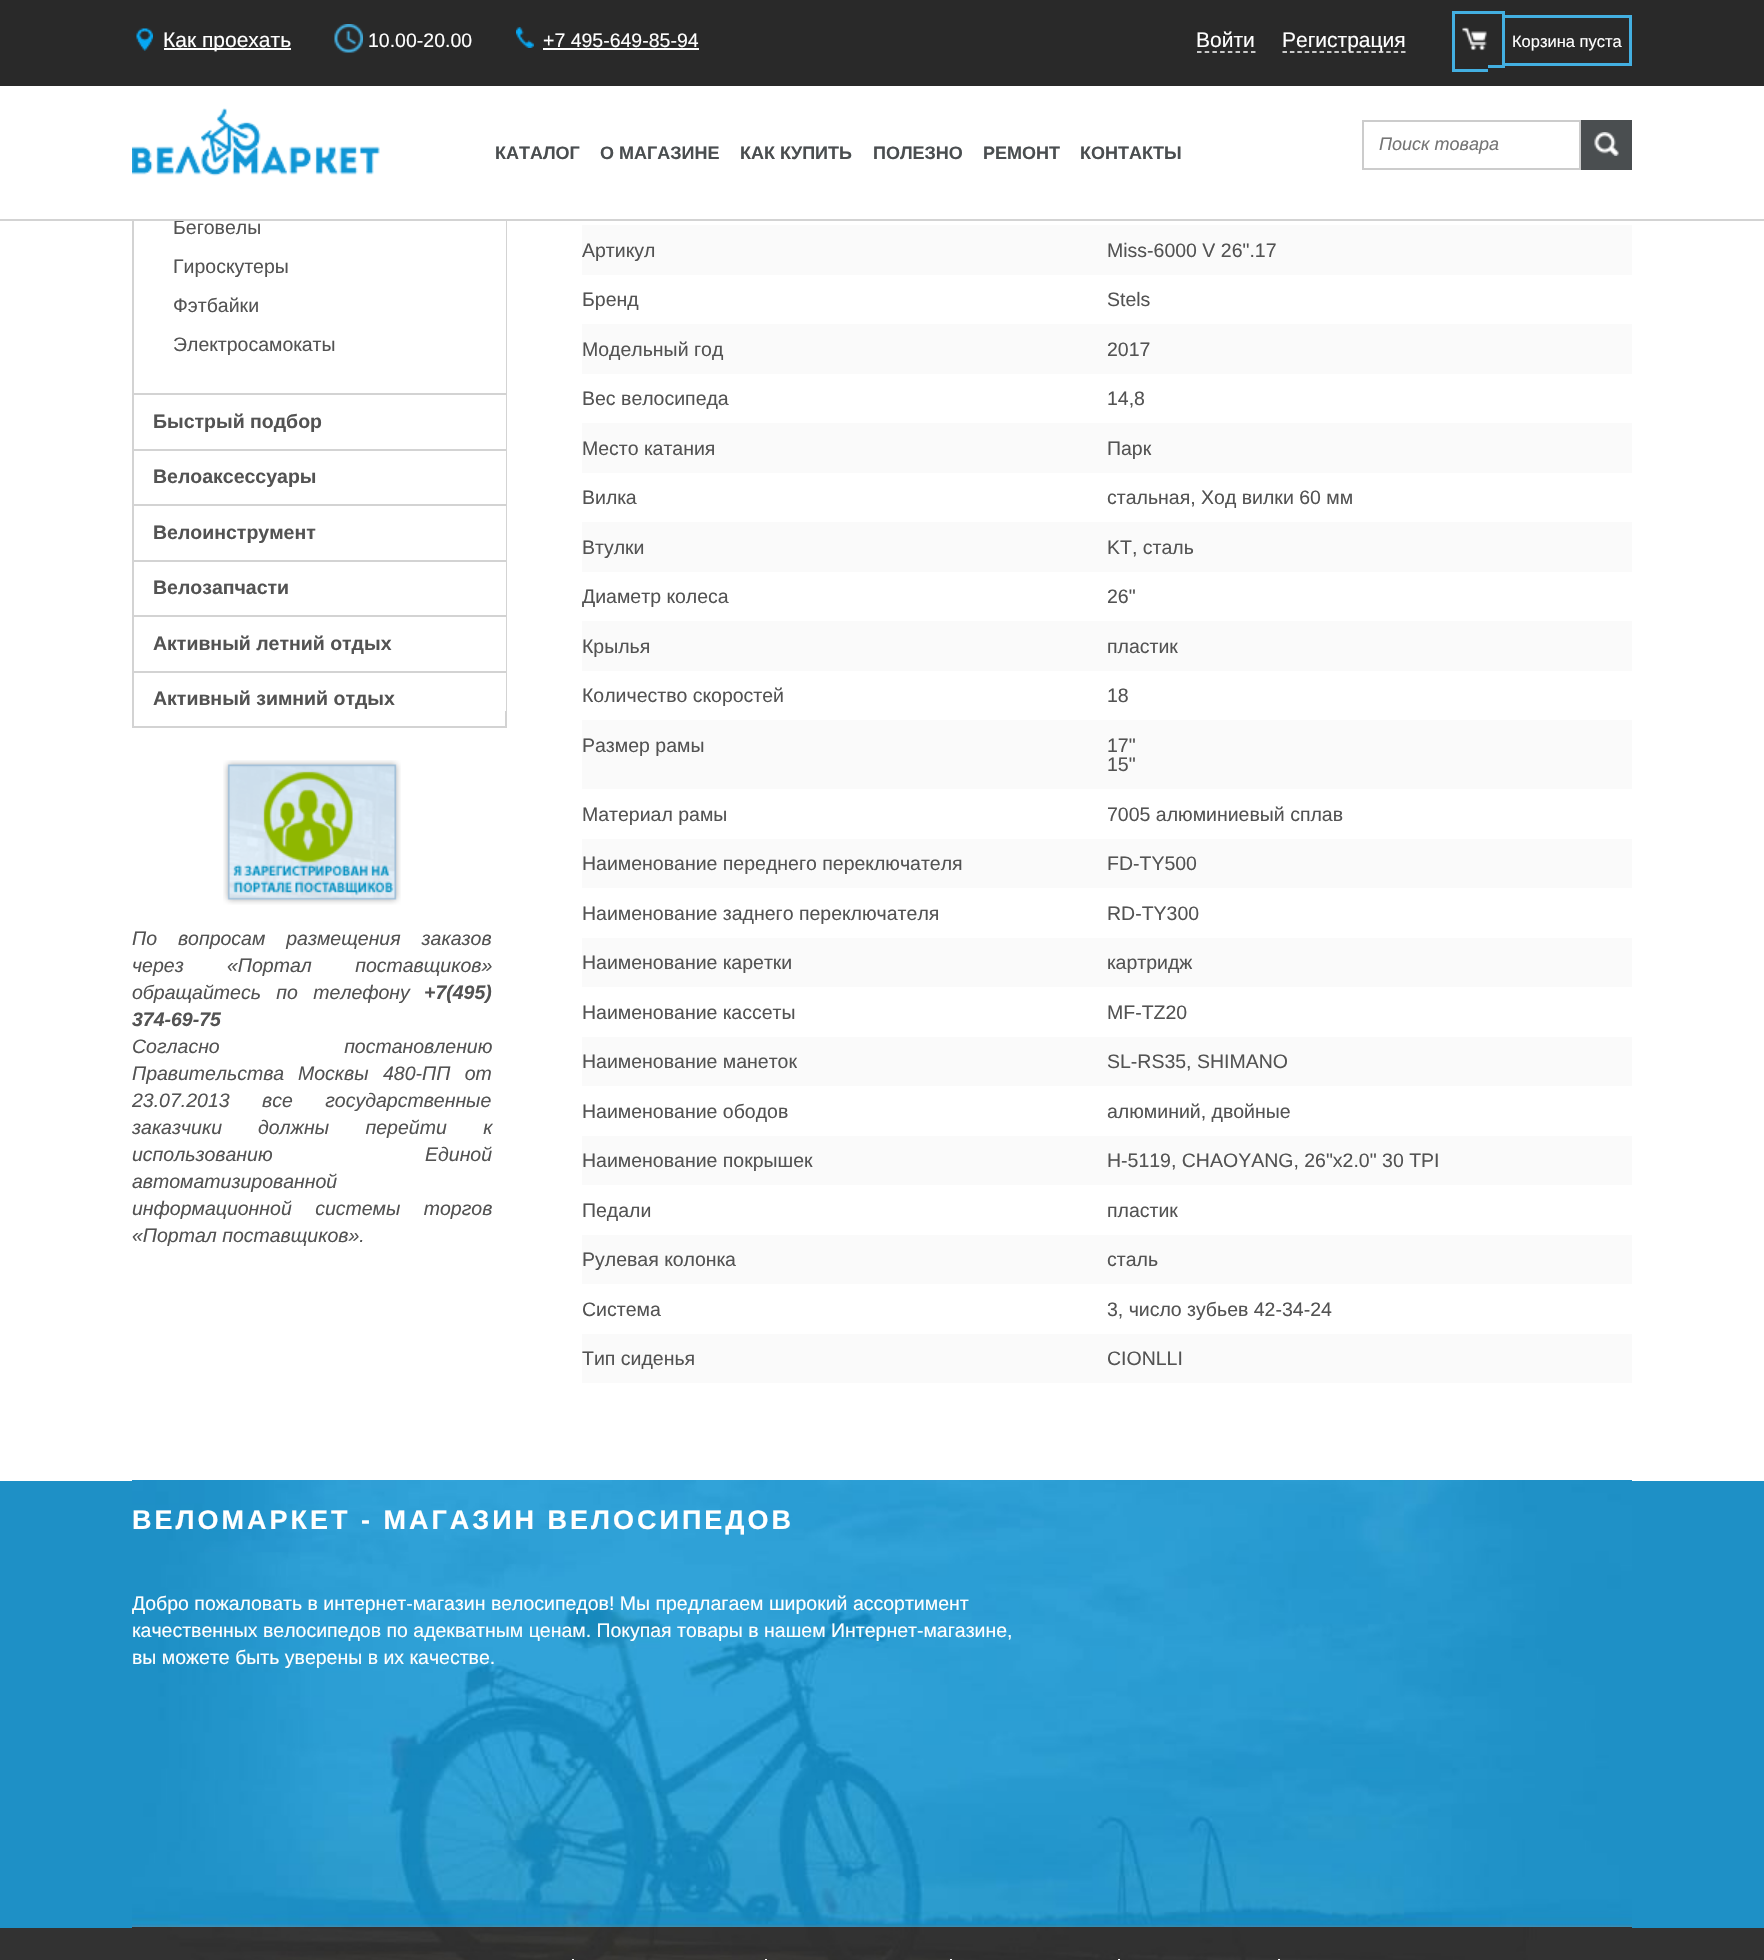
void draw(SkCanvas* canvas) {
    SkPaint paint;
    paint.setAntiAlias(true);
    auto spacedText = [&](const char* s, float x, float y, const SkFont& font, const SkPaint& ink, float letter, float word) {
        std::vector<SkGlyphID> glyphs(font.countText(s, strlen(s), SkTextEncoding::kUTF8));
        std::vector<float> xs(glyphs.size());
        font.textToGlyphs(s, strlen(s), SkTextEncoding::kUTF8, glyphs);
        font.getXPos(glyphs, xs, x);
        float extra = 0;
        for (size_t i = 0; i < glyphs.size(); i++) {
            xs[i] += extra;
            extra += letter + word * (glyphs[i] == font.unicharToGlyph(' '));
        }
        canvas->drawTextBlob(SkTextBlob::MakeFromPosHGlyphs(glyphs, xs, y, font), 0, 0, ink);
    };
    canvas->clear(0xFFFFFFFF);
    paint.setStyle(SkPaint::kStroke_Style);
    paint.setStrokeWidth(2);
    paint.setColor(0xFFD3D3D3);
    canvas->drawRect(SkRect::MakeXYWH(133, -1, 373, 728), paint);
    paint.setStyle(SkPaint::kFill_Style);
    paint.setColor(0xFF292929);
    canvas->drawRect(SkRect::MakeXYWH(0, 0, 1764, 86), paint);
    canvas->drawImageRect(SkImages::DeferredFromEncodedData(SkData::MakeFromFileName("img1.png")), SkRect::MakeXYWH(136, 28, 17, 23), SkSamplingOptions());
    paint.setColor(0xFFFFFFFF);
    canvas->drawRect(SkRect::MakeXYWH(164, 48, 127, 2), paint);
    SkFont font1(fontMgr->matchFamilyStyle("Liberation Sans", SkFontStyle::Normal()), 21);
    font1.setSubpixel(true);
    canvas->drawString("Как проехать", 163, 47, font1, paint);
    canvas->drawImageRect(SkImages::DeferredFromEncodedData(SkData::MakeFromFileName("img2.png")), SkRect::MakeXYWH(334, 24, 29, 29), SkSamplingOptions());
    SkFont font2(fontMgr->matchFamilyStyle("Liberation Sans", SkFontStyle::Normal()), 19.5f);
    font2.setSubpixel(true);
    canvas->drawString("10.00-20.00", 368, 47, font2, paint);
    canvas->drawImageRect(SkImages::DeferredFromEncodedData(SkData::MakeFromFileName("img3.png")), SkRect::MakeXYWH(516, 27, 18, 21), SkSamplingOptions());
    canvas->drawString("+7 495-649-85-94", 543, 47, font2, paint);
    canvas->drawRect(SkRect::MakeXYWH(543, 48, 156, 2), paint);
    canvas->drawString("Войти", 1196, 47, font1, paint);
    paint.setStyle(SkPaint::kStroke_Style);
    paint.setStrokeWidth(1.5f);
    paint.setPathEffect(SkDashPathEffect::Make({{4.5f, 3.21f}}, 0));
    canvas->drawPath(SkPathBuilder().moveTo(1197, 52).lineTo(1255.5f, 52).detach(), paint);
    paint.setPathEffect(nullptr);
    paint.setPathEffect(SkDashPathEffect::Make({{4.5f, 2.91f}}, 0));
    canvas->drawPath(SkPathBuilder().moveTo(1282.5f, 52).lineTo(1405.5f, 52).detach(), paint);
    paint.setPathEffect(nullptr);
    paint.setStyle(SkPaint::kFill_Style);
    canvas->drawString("Регистрация", 1282, 47, font1, paint);
    paint.setColor(0xFF43AFE1);
    canvas->drawRect(SkRect::MakeXYWH(1452, 11, 53, 3), paint);
    canvas->drawRect(SkRect::MakeXYWH(1452, 69, 36, 3), paint);
    canvas->drawRect(SkRect::MakeXYWH(1452, 11, 3, 61), paint);
    canvas->drawRect(SkRect::MakeXYWH(1502, 11, 3, 57), paint);
    canvas->drawRect(SkRect::MakeXYWH(1488, 65, 17, 3), paint);
    canvas->drawImageRect(SkImages::DeferredFromEncodedData(SkData::MakeFromFileName("img4.png")), SkRect::MakeXYWH(1462, 27, 25, 24), SkSamplingOptions());
    SkFont font3(fontMgr->matchFamilyStyle("Liberation Sans", SkFontStyle::Normal()), 16.5f);
    font3.setSubpixel(true);
    paint.setColor(0xFFFFFFFF);
    canvas->drawString("Корзина пуста", 1512, 47, font3, paint);
    paint.setColor(0xFF43AFE1);
    canvas->drawRect(SkRect::MakeXYWH(1505, 15, 127, 3), paint);
    canvas->drawRect(SkRect::MakeXYWH(1505, 63, 117, 3), paint);
    canvas->drawRect(SkRect::MakeXYWH(1629, 15, 3, 51), paint);
    canvas->drawRect(SkRect::MakeXYWH(1622, 63, 10, 3), paint);
    paint.setColor(0xFFFFFFFF);
    canvas->drawRect(SkRect::MakeXYWH(132, 86, 375, 133), paint);
    paint.setColor(0xFF535353);
    canvas->drawString("Беговелы", 173, 234, font2, paint);
    paint.setColor(0xFFD3D3D3);
    canvas->drawRect(SkRect::MakeXYWH(0, 219, 1764, 2), paint);
    canvas->drawImageRect(SkImages::DeferredFromEncodedData(SkData::MakeFromFileName("img5.png")), SkRect::MakeXYWH(132, 108, 248, 68), SkSamplingOptions());
    SkFont font4(fontMgr->matchFamilyStyle("Liberation Sans", SkFontStyle::Bold()), 18);
    font4.setSubpixel(true);
    paint.setColor(0xFF4A4E50);
    canvas->drawString("КАТАЛОГ", 495, 159, font4, paint);
    canvas->drawString("О МАГАЗИНЕ", 600, 159, font4, paint);
    canvas->drawString("КАК КУПИТЬ", 740, 159, font4, paint);
    canvas->drawString("ПОЛЕЗНО", 873, 159, font4, paint);
    canvas->drawString("РЕМОНТ", 983, 159, font4, paint);
    canvas->drawString("КОНТАКТЫ", 1080, 159, font4, paint);
    paint.setStyle(SkPaint::kStroke_Style);
    paint.setStrokeWidth(2);
    paint.setColor(0xFFCCCCCC);
    canvas->drawRect(SkRect::MakeXYWH(1363, 121, 217, 48), paint);
    SkFont font5(fontMgr->matchFamilyStyle("Liberation Sans", SkFontStyle::Italic()), 18);
    font5.setSubpixel(true);
    paint.setStyle(SkPaint::kFill_Style);
    paint.setColor(0xFF757575);
    canvas->drawString("Поиск товара", 1379, 150, font5, paint);
    paint.setColor(0xFF4A4E50);
    canvas->drawRect(SkRect::MakeXYWH(1581, 120, 51, 50), paint);
    canvas->drawImageRect(SkImages::DeferredFromEncodedData(SkData::MakeFromFileName("img6.png")), SkRect::MakeXYWH(1594, 132, 25, 24), SkSamplingOptions());
    paint.setColor(0xFFFFFFFF);
    canvas->drawRect(SkRect::MakeXYWH(505, 221, 1, 490), paint);
    paint.setColor(0xFFD3D3D3);
    canvas->drawRect(SkRect::MakeXYWH(134, 393, 372, 2), paint);
    paint.setColor(0xFF535353);
    canvas->drawString("Гироскутеры", 173, 273, font2, paint);
    canvas->drawString("Фэтбайки", 173, 312, font2, paint);
    canvas->drawString("Электросамокаты", 173, 351, font2, paint);
    paint.setColor(0xFFD3D3D3);
    canvas->drawRect(SkRect::MakeXYWH(134, 449, 372, 2), paint);
    SkFont font6(fontMgr->matchFamilyStyle("Liberation Sans", SkFontStyle::Bold()), 19.5f);
    font6.setSubpixel(true);
    paint.setColor(0xFF535353);
    canvas->drawString("Быстрый подбор", 153, 428, font6, paint);
    paint.setColor(0xFFD3D3D3);
    canvas->drawRect(SkRect::MakeXYWH(134, 504, 372, 2), paint);
    paint.setColor(0xFF535353);
    canvas->drawString("Велоаксессуары", 153, 483, font6, paint);
    paint.setColor(0xFFD3D3D3);
    canvas->drawRect(SkRect::MakeXYWH(134, 560, 372, 2), paint);
    paint.setColor(0xFF535353);
    canvas->drawString("Велоинструмент", 153, 539, font6, paint);
    paint.setColor(0xFFD3D3D3);
    canvas->drawRect(SkRect::MakeXYWH(134, 615, 372, 2), paint);
    paint.setColor(0xFF535353);
    canvas->drawString("Велозапчасти", 153, 594, font6, paint);
    paint.setColor(0xFFD3D3D3);
    canvas->drawRect(SkRect::MakeXYWH(134, 671, 372, 2), paint);
    paint.setColor(0xFF535353);
    canvas->drawString("Активный летний отдых", 153, 650, font6, paint);
    canvas->drawString("Активный зимний отдых", 153, 705, font6, paint);
    canvas->drawImageRect(SkImages::DeferredFromEncodedData(SkData::MakeFromFileName("img7.png")), SkRect::MakeXYWH(223, 760, 178, 145), SkSamplingOptions());
    SkFont font7(fontMgr->matchFamilyStyle("Liberation Sans", SkFontStyle::Italic()), 19.5f);
    font7.setSubpixel(true);
    spacedText("По вопросам размещения заказов", 132, 945, font7, paint, 0, 15.5f);
    canvas->drawString("через", 132, 972, font7, paint);
    spacedText("«Портал поставщиков»", 227, 972, font7, paint, 0, 38);
    spacedText("обращайтесь по телефону", 132, 999, font7, paint, 0, 10);
    SkFont font8(fontMgr->matchFamilyStyle("Liberation Sans", SkFontStyle::BoldItalic()), 19.5f);
    font8.setSubpixel(true);
    canvas->drawString("+7(495)", 424, 999, font8, paint);
    canvas->drawString("374-69-75", 132, 1026, font8, paint);
    spacedText("Согласно постановлению", 132, 1053, font7, paint, 0, 119);
    canvas->drawString("Правительства", 132, 1080, font7, paint);
    spacedText("Москвы 480-ПП от", 298, 1080, font7, paint, 0, 9);
    spacedText("23.07.2013 все государственные", 132, 1107, font7, paint, 0, 27);
    canvas->drawString("заказчики", 132, 1134, font7, paint);
    spacedText("должны перейти к", 258, 1134, font7, paint, 0, 31);
    spacedText("использованию Единой", 132, 1161, font7, paint, 0, 147);
    canvas->drawString("автоматизированной", 132, 1188, font7, paint);
    spacedText("информационной системы торгов", 132, 1215, font7, paint, 0, 18);
    canvas->drawString("«Портал поставщиков».", 132, 1242, font7, paint);
    paint.setColor(0xFFFAFAFA);
    canvas->drawRect(SkRect::MakeXYWH(582, 225, 1050, 50), paint);
    paint.setColor(0xFF535353);
    canvas->drawString("Артикул", 582, 257, font2, paint);
    canvas->drawString("Miss-6000 V 26\".17", 1107, 257, font2, paint);
    canvas->drawString("Бренд", 582, 306, font2, paint);
    canvas->drawString("Stels", 1107, 306, font2, paint);
    paint.setColor(0xFFFAFAFA);
    canvas->drawRect(SkRect::MakeXYWH(582, 324, 1050, 50), paint);
    paint.setColor(0xFF535353);
    canvas->drawString("Модельный год", 582, 356, font2, paint);
    canvas->drawString("2017", 1107, 356, font2, paint);
    canvas->drawString("Вес велосипеда", 582, 405, font2, paint);
    canvas->drawString("14,8", 1107, 405, font2, paint);
    paint.setColor(0xFFFAFAFA);
    canvas->drawRect(SkRect::MakeXYWH(582, 423, 1050, 50), paint);
    paint.setColor(0xFF535353);
    canvas->drawString("Место катания", 582, 455, font2, paint);
    canvas->drawString("Парк", 1107, 455, font2, paint);
    canvas->drawString("Вилка", 582, 504, font2, paint);
    canvas->drawString("стальная, Ход вилки 60 мм", 1107, 504, font2, paint);
    paint.setColor(0xFFFAFAFA);
    canvas->drawRect(SkRect::MakeXYWH(582, 522, 1050, 50), paint);
    paint.setColor(0xFF535353);
    canvas->drawString("Втулки", 582, 554, font2, paint);
    canvas->drawString("KT, сталь", 1107, 554, font2, paint);
    canvas->drawString("Диаметр колеса", 582, 603, font2, paint);
    canvas->drawString("26\"", 1107, 603, font2, paint);
    paint.setColor(0xFFFAFAFA);
    canvas->drawRect(SkRect::MakeXYWH(582, 621, 1050, 50), paint);
    paint.setColor(0xFF535353);
    canvas->drawString("Крылья", 582, 653, font2, paint);
    canvas->drawString("пластик", 1107, 653, font2, paint);
    canvas->drawString("Количество скоростей", 582, 702, font2, paint);
    canvas->drawString("18", 1107, 702, font2, paint);
    paint.setColor(0xFFFAFAFA);
    canvas->drawRect(SkRect::MakeXYWH(582, 720, 1050, 69), paint);
    paint.setColor(0xFF535353);
    canvas->drawString("Размер рамы", 582, 752, font2, paint);
    canvas->drawString("17\"", 1107, 752, font2, paint);
    canvas->drawString("15\"", 1107, 771, font2, paint);
    canvas->drawString("Материал рамы", 582, 821, font2, paint);
    canvas->drawString("7005 алюминиевый сплав", 1107, 821, font2, paint);
    paint.setColor(0xFFFAFAFA);
    canvas->drawRect(SkRect::MakeXYWH(582, 839, 1050, 49), paint);
    paint.setColor(0xFF535353);
    canvas->drawString("Наименование переднего переключателя", 582, 870, font2, paint);
    canvas->drawString("FD-TY500", 1107, 870, font2, paint);
    canvas->drawString("Наименование заднего переключателя", 582, 920, font2, paint);
    canvas->drawString("RD-TY300", 1107, 920, font2, paint);
    paint.setColor(0xFFFAFAFA);
    canvas->drawRect(SkRect::MakeXYWH(582, 938, 1050, 49), paint);
    paint.setColor(0xFF535353);
    canvas->drawString("Наименование каретки", 582, 969, font2, paint);
    canvas->drawString("картридж", 1107, 969, font2, paint);
    canvas->drawString("Наименование кассеты", 582, 1019, font2, paint);
    canvas->drawString("MF-TZ20", 1107, 1019, font2, paint);
    paint.setColor(0xFFFAFAFA);
    canvas->drawRect(SkRect::MakeXYWH(582, 1037, 1050, 49), paint);
    paint.setColor(0xFF535353);
    canvas->drawString("Наименование манеток", 582, 1068, font2, paint);
    canvas->drawString("SL-RS35, SHIMANO", 1107, 1068, font2, paint);
    canvas->drawString("Наименование ободов", 582, 1118, font2, paint);
    canvas->drawString("алюминий, двойные", 1107, 1118, font2, paint);
    paint.setColor(0xFFFAFAFA);
    canvas->drawRect(SkRect::MakeXYWH(582, 1136, 1050, 49), paint);
    paint.setColor(0xFF535353);
    canvas->drawString("Наименование покрышек", 582, 1167, font2, paint);
    canvas->drawString("H-5119, CHAOYANG, 26\"x2.0\" 30 TPI", 1107, 1167, font2, paint);
    canvas->drawString("Педали", 582, 1217, font2, paint);
    canvas->drawString("пластик", 1107, 1217, font2, paint);
    paint.setColor(0xFFFAFAFA);
    canvas->drawRect(SkRect::MakeXYWH(582, 1235, 1050, 49), paint);
    paint.setColor(0xFF535353);
    canvas->drawString("Рулевая колонка", 582, 1266, font2, paint);
    canvas->drawString("сталь", 1107, 1266, font2, paint);
    canvas->drawString("Система", 582, 1316, font2, paint);
    canvas->drawString("3, число зубьев 42-34-24", 1107, 1316, font2, paint);
    paint.setColor(0xFFFAFAFA);
    canvas->drawRect(SkRect::MakeXYWH(582, 1334, 1050, 49), paint);
    paint.setColor(0xFF535353);
    canvas->drawString("Тип сиденья", 582, 1365, font2, paint);
    canvas->drawString("CIONLLI", 1107, 1365, font2, paint);
    paint.setColor(0xFF1E90C6);
    canvas->drawRect(SkRect::MakeXYWH(0, 1481, 1764, 447), paint);
    canvas->drawImageRect(SkImages::DeferredFromEncodedData(SkData::MakeFromFileName("img8.png")), SkRect::MakeXYWH(132, 1480, 1500, 447), SkSamplingOptions());
    SkFont font9(fontMgr->matchFamilyStyle("Liberation Sans", SkFontStyle::Bold()), 27);
    font9.setSubpixel(true);
    paint.setColor(0xFFFFFFFF);
    spacedText("ВЕЛОМАРКЕТ - МАГАЗИН ВЕЛОСИПЕДОВ", 132, 1529, font9, paint, 3, 0);
    canvas->drawString("Добро пожаловать в интернет-магазин велосипедов! Мы предлагаем широкий ассортимент", 132, 1610, font2, paint);
    canvas->drawString("качественных велосипедов по адекватным ценам. Покупая товары в нашем Интернет-магазине,", 132, 1637, font2, paint);
    canvas->drawString("вы можете быть уверены в их качестве.", 132, 1664, font2, paint);
    paint.setColor(0xFF323232);
    canvas->drawRect(SkRect::MakeXYWH(0, 1928, 1764, 32), paint);
    canvas->drawImageRect(SkImages::DeferredFromEncodedData(SkData::MakeFromFileName("img9.png")), SkRect::MakeXYWH(132, 1927, 1500, 33), SkSamplingOptions());
    paint.setColor(0xFFFFFFFF);
    canvas->drawRect(SkRect::MakeXYWH(572, 1959, 2, 1), paint);
    canvas->drawRect(SkRect::MakeXYWH(765, 1959, 2, 1), paint);
    canvas->drawRect(SkRect::MakeXYWH(950, 1959, 2, 1), paint);
    canvas->drawRect(SkRect::MakeXYWH(1118, 1959, 2, 1), paint);
    canvas->drawRect(SkRect::MakeXYWH(1278, 1959, 2, 1), paint);
}
